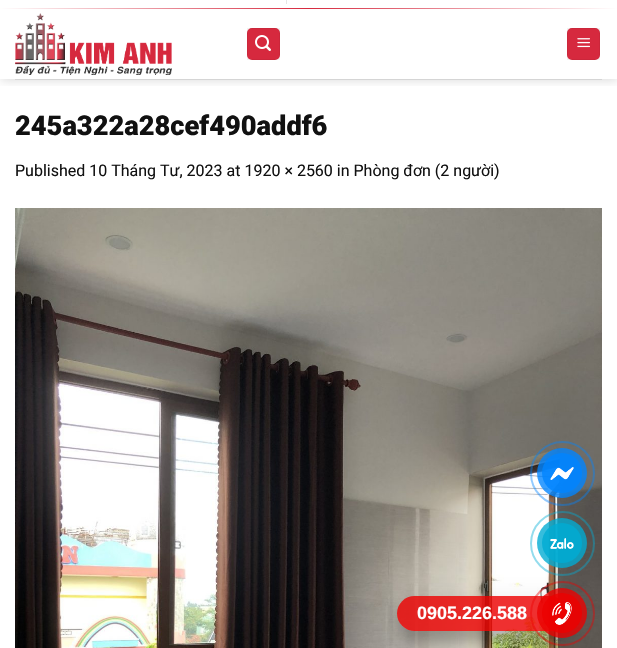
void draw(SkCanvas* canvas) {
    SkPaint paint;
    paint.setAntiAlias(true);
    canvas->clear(0xFFFFFFFF);
    canvas->save();
    canvas->clipRect(SkRect::MakeXYWH(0, 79, 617, 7));
    paint.setColor(0x26000000);
    paint.setMaskFilter(SkMaskFilter::MakeBlur(kNormal_SkBlurStyle, 5));
    canvas->drawRect(SkRect::MakeXYWH(1, -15, 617, 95), paint);
    paint.setMaskFilter(nullptr);
    canvas->restore();
    paint.setColor(0xFFE6E6E6);
    canvas->drawRect(SkRect::MakeXYWH(286, 0, 1, 4), paint);
    {
        const SkColor colors[] = {0xFFFFFFFF, 0xFFD6293E, 0xFFFFFFFF};
        const float stops[] = {0, 0.5f, 1};
        const SkPoint ends[] = {{154, 163}, {463, -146}};
        paint.setShader(SkGradientShader::MakeLinear(ends, colors, stops, 3, SkTileMode::kClamp));
        paint.setAlpha(255);
    }
    canvas->drawRect(SkRect::MakeXYWH(0, 8, 617, 1), paint);
    canvas->drawImageRect(SkImages::DeferredFromEncodedData(SkData::MakeFromFileName("img1.png")), SkRect::MakeXYWH(15, 13, 157, 62), SkSamplingOptions());
    paint.setShader(nullptr);
    paint.setColor(0xFFD6293E);
    canvas->drawRoundRect(SkRect::MakeXYWH(247, 28, 33, 32), 5, 5, paint);
    paint.setStyle(SkPaint::kStroke_Style);
    paint.setStrokeWidth(1);
    paint.setColor(0x0D000000);
    canvas->drawRect(SkRect::MakeXYWH(247.5f, 28.5f, 32, 31), paint);
    canvas->drawImageRect(SkImages::DeferredFromEncodedData(SkData::MakeFromFileName("img2.png")), SkRect::MakeXYWH(255, 35, 16, 16), SkSamplingOptions());
    paint.setStyle(SkPaint::kFill_Style);
    paint.setColor(0xFFD6293E);
    canvas->drawRoundRect(SkRect::MakeXYWH(567, 28, 33, 32), 5, 5, paint);
    paint.setStyle(SkPaint::kStroke_Style);
    paint.setColor(0x0D000000);
    canvas->drawRect(SkRect::MakeXYWH(567.5f, 28.5f, 32, 31), paint);
    canvas->drawImageRect(SkImages::DeferredFromEncodedData(SkData::MakeFromFileName("img3.png")), SkRect::MakeXYWH(577, 38, 13, 10), SkSamplingOptions());
    paint.setStyle(SkPaint::kFill_Style);
    paint.setColor(0xFFD5D5D5);
    canvas->drawRect(SkRect::MakeXYWH(15, 79, 587, 1), paint);
    SkFont font1(fontMgr->matchFamilyStyle("Roboto", SkFontStyle(900, SkFontStyle::kNormal_Width, SkFontStyle::kUpright_Slant)), 27.25f);
    font1.setSubpixel(true);
    paint.setColor(0xFF111111);
    canvas->drawString("245a322a28cef490addf6", 15, 135, font1, paint);
    SkFont font2(fontMgr->matchFamilyStyle("Roboto", SkFontStyle::Normal()), 16);
    font2.setSubpixel(true);
    canvas->drawString("Published 10 Tháng Tư, 2023 at 1920 × 2560 in Phòng đơn (2 người)", 15, 176, font2, paint);
    canvas->drawImageRect(SkImages::DeferredFromEncodedData(SkData::MakeFromFileName("img4.png")), SkRect::MakeXYWH(15, 208, 587, 440), SkSamplingOptions());
    paint.setStyle(SkPaint::kStroke_Style);
    paint.setStrokeWidth(2);
    paint.setColor(0x6B0084FF);
    canvas->drawCircle(562.5f, 473.5f, 31.5f, paint);
    paint.setStyle(SkPaint::kFill_Style);
    paint.setColor(0xC90084FF);
    canvas->drawCircle(562, 473, 25, paint);
    paint.setColor(0xCF0084FF);
    canvas->drawCircle(562, 473, 20, paint);
    canvas->drawImageRect(SkImages::DeferredFromEncodedData(SkData::MakeFromFileName("img5.png")), SkRect::MakeXYWH(550, 467, 24, 13), SkSamplingOptions());
    paint.setStyle(SkPaint::kStroke_Style);
    paint.setColor(0x6B00ABD3);
    canvas->drawCircle(562.5f, 543.5f, 31.5f, paint);
    paint.setStyle(SkPaint::kFill_Style);
    paint.setColor(0xC900ABD3);
    canvas->drawCircle(562, 543, 25, paint);
    paint.setColor(0xCF00ABD3);
    canvas->drawCircle(562, 543, 20, paint);
    canvas->drawImageRect(SkImages::DeferredFromEncodedData(SkData::MakeFromFileName("img6.png")), SkRect::MakeXYWH(550, 538, 24, 11), SkSamplingOptions());
    canvas->save();
    canvas->clipPath(SkPathBuilder(SkPathFillType::kEvenOdd).moveTo(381, 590).lineTo(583, 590).lineTo(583, 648).lineTo(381, 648).close().moveTo(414.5f, 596).lineTo(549.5f, 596).cubicTo(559, 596, 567, 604, 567, 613.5f).cubicTo(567, 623, 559, 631, 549.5f, 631).lineTo(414.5f, 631).cubicTo(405, 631, 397, 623, 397, 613.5f).cubicTo(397, 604, 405, 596, 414.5f, 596).close().detach(), true);
    paint.setColor(0x1A000000);
    paint.setMaskFilter(SkMaskFilter::MakeBlur(kNormal_SkBlurStyle, 5));
    canvas->drawRoundRect(SkRect::MakeXYWH(397, 606, 170, 35), 17.5f, 17.5f, paint);
    paint.setMaskFilter(nullptr);
    canvas->restore();
    canvas->save();
    canvas->clipPath(SkPathBuilder(SkPathFillType::kEvenOdd).moveTo(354, 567).lineTo(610, 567).lineTo(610, 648).lineTo(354, 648).close().moveTo(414.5f, 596).lineTo(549.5f, 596).cubicTo(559, 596, 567, 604, 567, 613.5f).cubicTo(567, 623, 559, 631, 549.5f, 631).lineTo(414.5f, 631).cubicTo(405, 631, 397, 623, 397, 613.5f).cubicTo(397, 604, 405, 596, 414.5f, 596).close().detach(), true);
    paint.setColor(0x40000000);
    paint.setMaskFilter(SkMaskFilter::MakeBlur(kNormal_SkBlurStyle, 14));
    canvas->drawRoundRect(SkRect::MakeXYWH(397, 610, 170, 35), 17.5f, 17.5f, paint);
    paint.setMaskFilter(nullptr);
    canvas->restore();
    paint.setColor(0xCFEB0000);
    canvas->drawRoundRect(SkRect::MakeXYWH(397, 596, 170, 35), 17.5f, 17.5f, paint);
    paint.setStyle(SkPaint::kStroke_Style);
    paint.setColor(0x6BEB0000);
    canvas->drawCircle(562.5f, 613.5f, 31.5f, paint);
    paint.setStyle(SkPaint::kFill_Style);
    paint.setColor(0xC9EB0000);
    canvas->drawCircle(562, 613, 25, paint);
    SkFont font3(fontMgr->matchFamilyStyle("Liberation Sans", SkFontStyle::Bold()), 18);
    font3.setSubpixel(true);
    paint.setColor(0xFFFFFFFF);
    canvas->drawString("0905.226.588", 417, 619, font3, paint);
    paint.setColor(0xCFEB0000);
    canvas->drawCircle(562, 613, 20, paint);
    canvas->drawImageRect(SkImages::DeferredFromEncodedData(SkData::MakeFromFileName("img7.png")), SkRect::MakeXYWH(552, 602, 20, 23), SkSamplingOptions());
}
